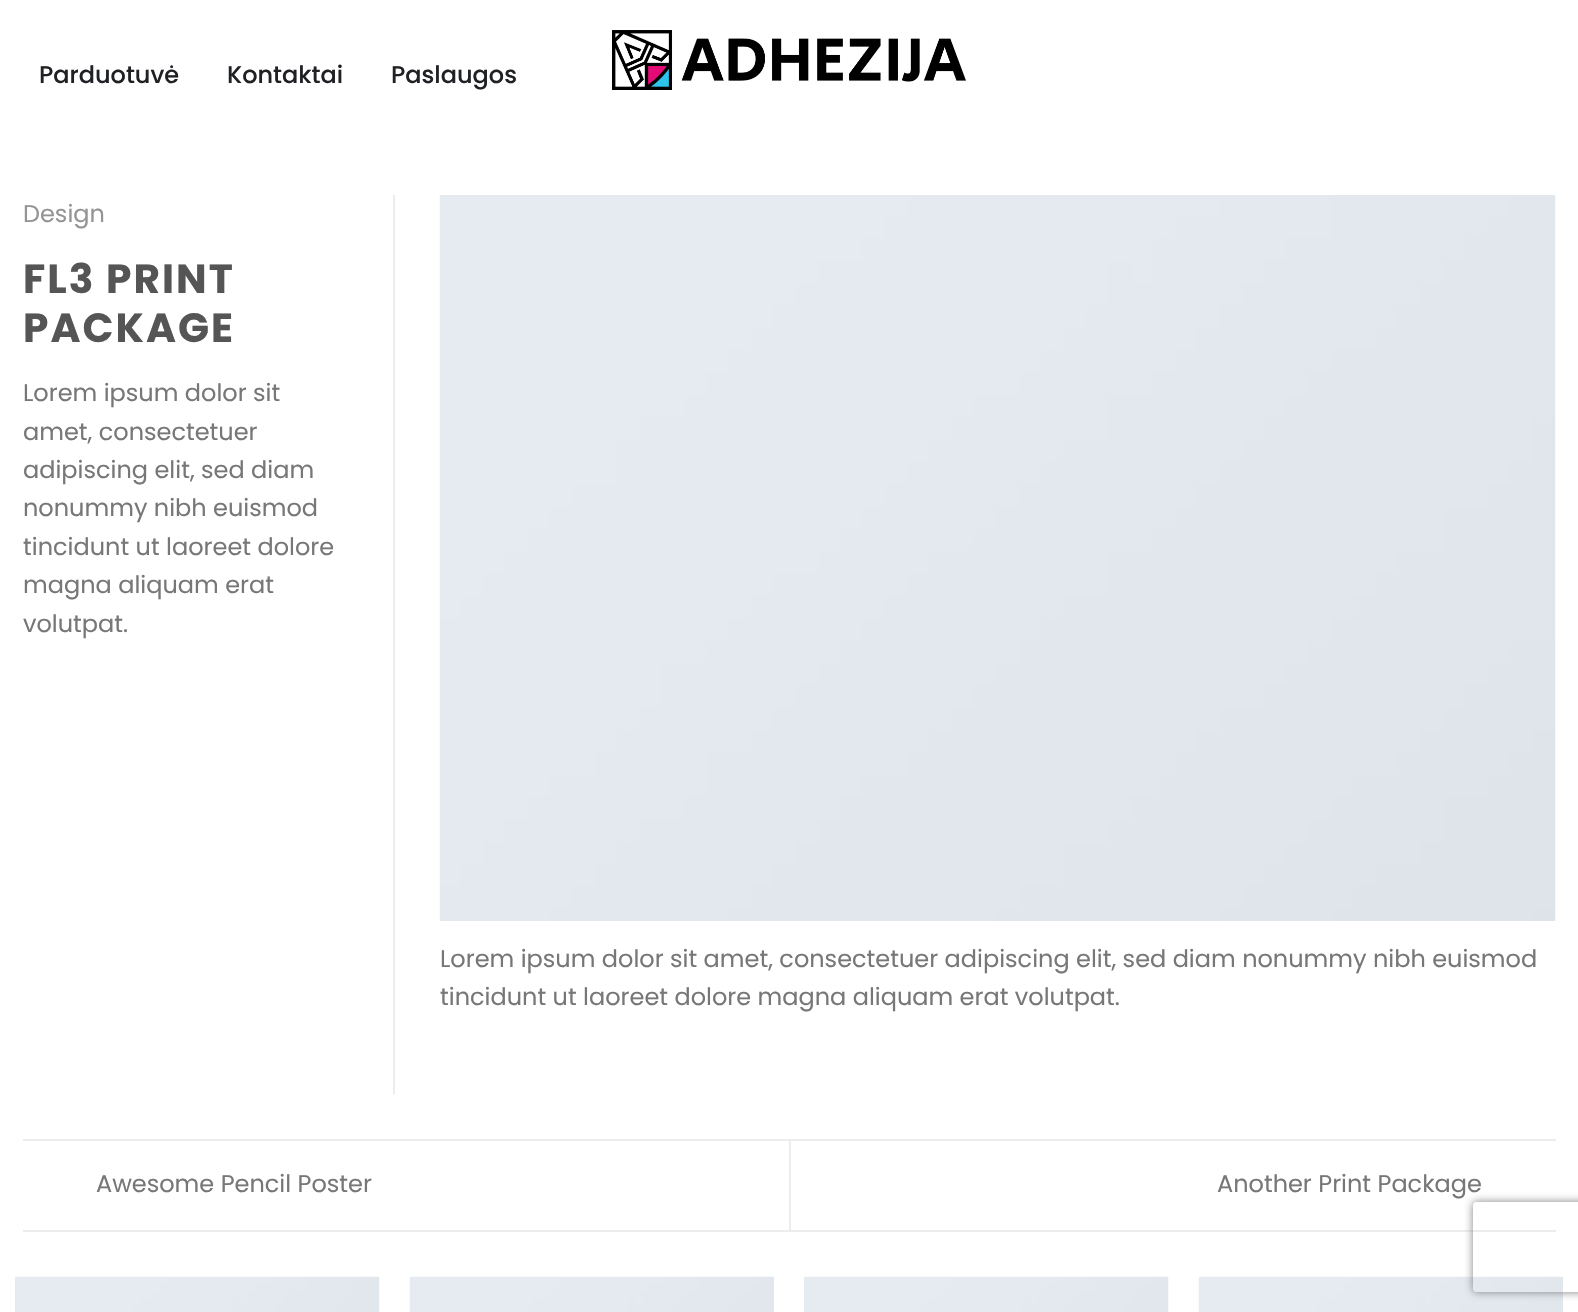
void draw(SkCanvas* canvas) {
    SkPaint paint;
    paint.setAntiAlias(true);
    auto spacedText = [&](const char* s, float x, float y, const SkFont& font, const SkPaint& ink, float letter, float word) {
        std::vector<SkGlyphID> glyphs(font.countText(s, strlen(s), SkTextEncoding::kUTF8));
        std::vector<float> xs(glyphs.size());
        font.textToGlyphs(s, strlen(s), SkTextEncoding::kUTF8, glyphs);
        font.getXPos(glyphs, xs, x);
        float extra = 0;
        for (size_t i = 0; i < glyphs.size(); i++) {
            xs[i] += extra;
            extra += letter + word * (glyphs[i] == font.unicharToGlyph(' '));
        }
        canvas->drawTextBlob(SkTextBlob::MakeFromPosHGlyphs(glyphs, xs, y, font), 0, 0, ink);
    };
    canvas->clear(0xFFFFFFFF);
    SkFont font1(fontMgr->matchFamilyStyle("Poppins", SkFontStyle(500, SkFontStyle::kNormal_Width, SkFontStyle::kUpright_Slant)), 24);
    font1.setSubpixel(true);
    paint.setColor(0xFF1F2124);
    canvas->drawString("Parduotuvė", 39, 83, font1, paint);
    canvas->drawString("Kontaktai", 227, 83, font1, paint);
    canvas->drawString("Paslaugos", 391, 83, font1, paint);
    canvas->drawImageRect(SkImages::DeferredFromEncodedData(SkData::MakeFromFileName("img1.png")), SkRect::MakeXYWH(612, 30, 354, 60), SkSamplingOptions());
    paint.setColor(0xFFECECEC);
    canvas->drawRect(SkRect::MakeXYWH(393, 195, 2, 899), paint);
    SkFont font2(fontMgr->matchFamilyStyle("Poppins", SkFontStyle::Normal()), 24);
    font2.setSubpixel(true);
    paint.setColor(0xFF949494);
    canvas->drawString("Design", 23, 222, font2, paint);
    SkFont font3(fontMgr->matchFamilyStyle("Poppins", SkFontStyle::Bold()), 40.75f);
    font3.setSubpixel(true);
    paint.setColor(0xFF555555);
    spacedText("FL3 PRINT", 23, 293, font3, paint, 2, 0);
    spacedText("PACKAGE", 23, 342, font3, paint, 2, 0);
    paint.setColor(0xFF777777);
    canvas->drawString("Lorem ipsum dolor sit", 23, 401, font2, paint);
    canvas->drawString("amet, consectetuer", 23, 440, font2, paint);
    canvas->drawString("adipiscing elit, sed diam", 23, 478, font2, paint);
    canvas->drawString("nonummy nibh euismod", 23, 516, font2, paint);
    canvas->drawString("tincidunt ut laoreet dolore", 23, 555, font2, paint);
    canvas->drawString("magna aliquam erat", 23, 593, font2, paint);
    canvas->drawString("volutpat.", 23, 632, font2, paint);
    canvas->drawImageRect(SkImages::DeferredFromEncodedData(SkData::MakeFromFileName("img2.png")), SkRect::MakeXYWH(439, 195, 1117, 726), SkSamplingOptions());
    canvas->drawString("Lorem ipsum dolor sit amet, consectetuer adipiscing elit, sed diam nonummy nibh euismod", 440, 967, font2, paint);
    canvas->drawString("tincidunt ut laoreet dolore magna aliquam erat volutpat.", 440, 1005, font2, paint);
    paint.setColor(0xFFECECEC);
    canvas->drawRect(SkRect::MakeXYWH(23, 1139, 1533, 2), paint);
    canvas->drawRect(SkRect::MakeXYWH(23, 1230, 1533, 2), paint);
    paint.setColor(0xFF777777);
    canvas->drawString("Awesome Pencil Poster", 96, 1192, font2, paint);
    paint.setColor(0xFFECECEC);
    canvas->drawRect(SkRect::MakeXYWH(789, 1140, 2, 90), paint);
    paint.setColor(0xFF777777);
    canvas->drawString("Another Print Package", 1217, 1192, font2, paint);
    canvas->drawImageRect(SkImages::DeferredFromEncodedData(SkData::MakeFromFileName("img3.png")), SkRect::MakeXYWH(15, 1276, 365, 36), SkSamplingOptions());
    canvas->drawImageRect(SkImages::DeferredFromEncodedData(SkData::MakeFromFileName("img4.png")), SkRect::MakeXYWH(409, 1276, 365, 36), SkSamplingOptions());
    canvas->drawImageRect(SkImages::DeferredFromEncodedData(SkData::MakeFromFileName("img3.png")), SkRect::MakeXYWH(804, 1276, 365, 36), SkSamplingOptions());
    canvas->drawImageRect(SkImages::DeferredFromEncodedData(SkData::MakeFromFileName("img4.png")), SkRect::MakeXYWH(1198, 1276, 365, 36), SkSamplingOptions());
    canvas->save();
    canvas->clipPath(SkPathBuilder(SkPathFillType::kEvenOdd).moveTo(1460, 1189).lineTo(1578, 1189).lineTo(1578, 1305).lineTo(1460, 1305).close().moveTo(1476, 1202).lineTo(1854, 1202).cubicTo(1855.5f, 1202, 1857, 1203.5f, 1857, 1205).lineTo(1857, 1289).cubicTo(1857, 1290.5f, 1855.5f, 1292, 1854, 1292).lineTo(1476, 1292).cubicTo(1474.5f, 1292, 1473, 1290.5f, 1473, 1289).lineTo(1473, 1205).cubicTo(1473, 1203.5f, 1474.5f, 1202, 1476, 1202).close().detach(), true);
    paint.setColor(0xFF808080);
    paint.setMaskFilter(SkMaskFilter::MakeBlur(kNormal_SkBlurStyle, 4));
    canvas->drawRoundRect(SkRect::MakeXYWH(1473, 1202, 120, 90), 3, 3, paint);
    paint.setMaskFilter(nullptr);
    canvas->restore();
}
